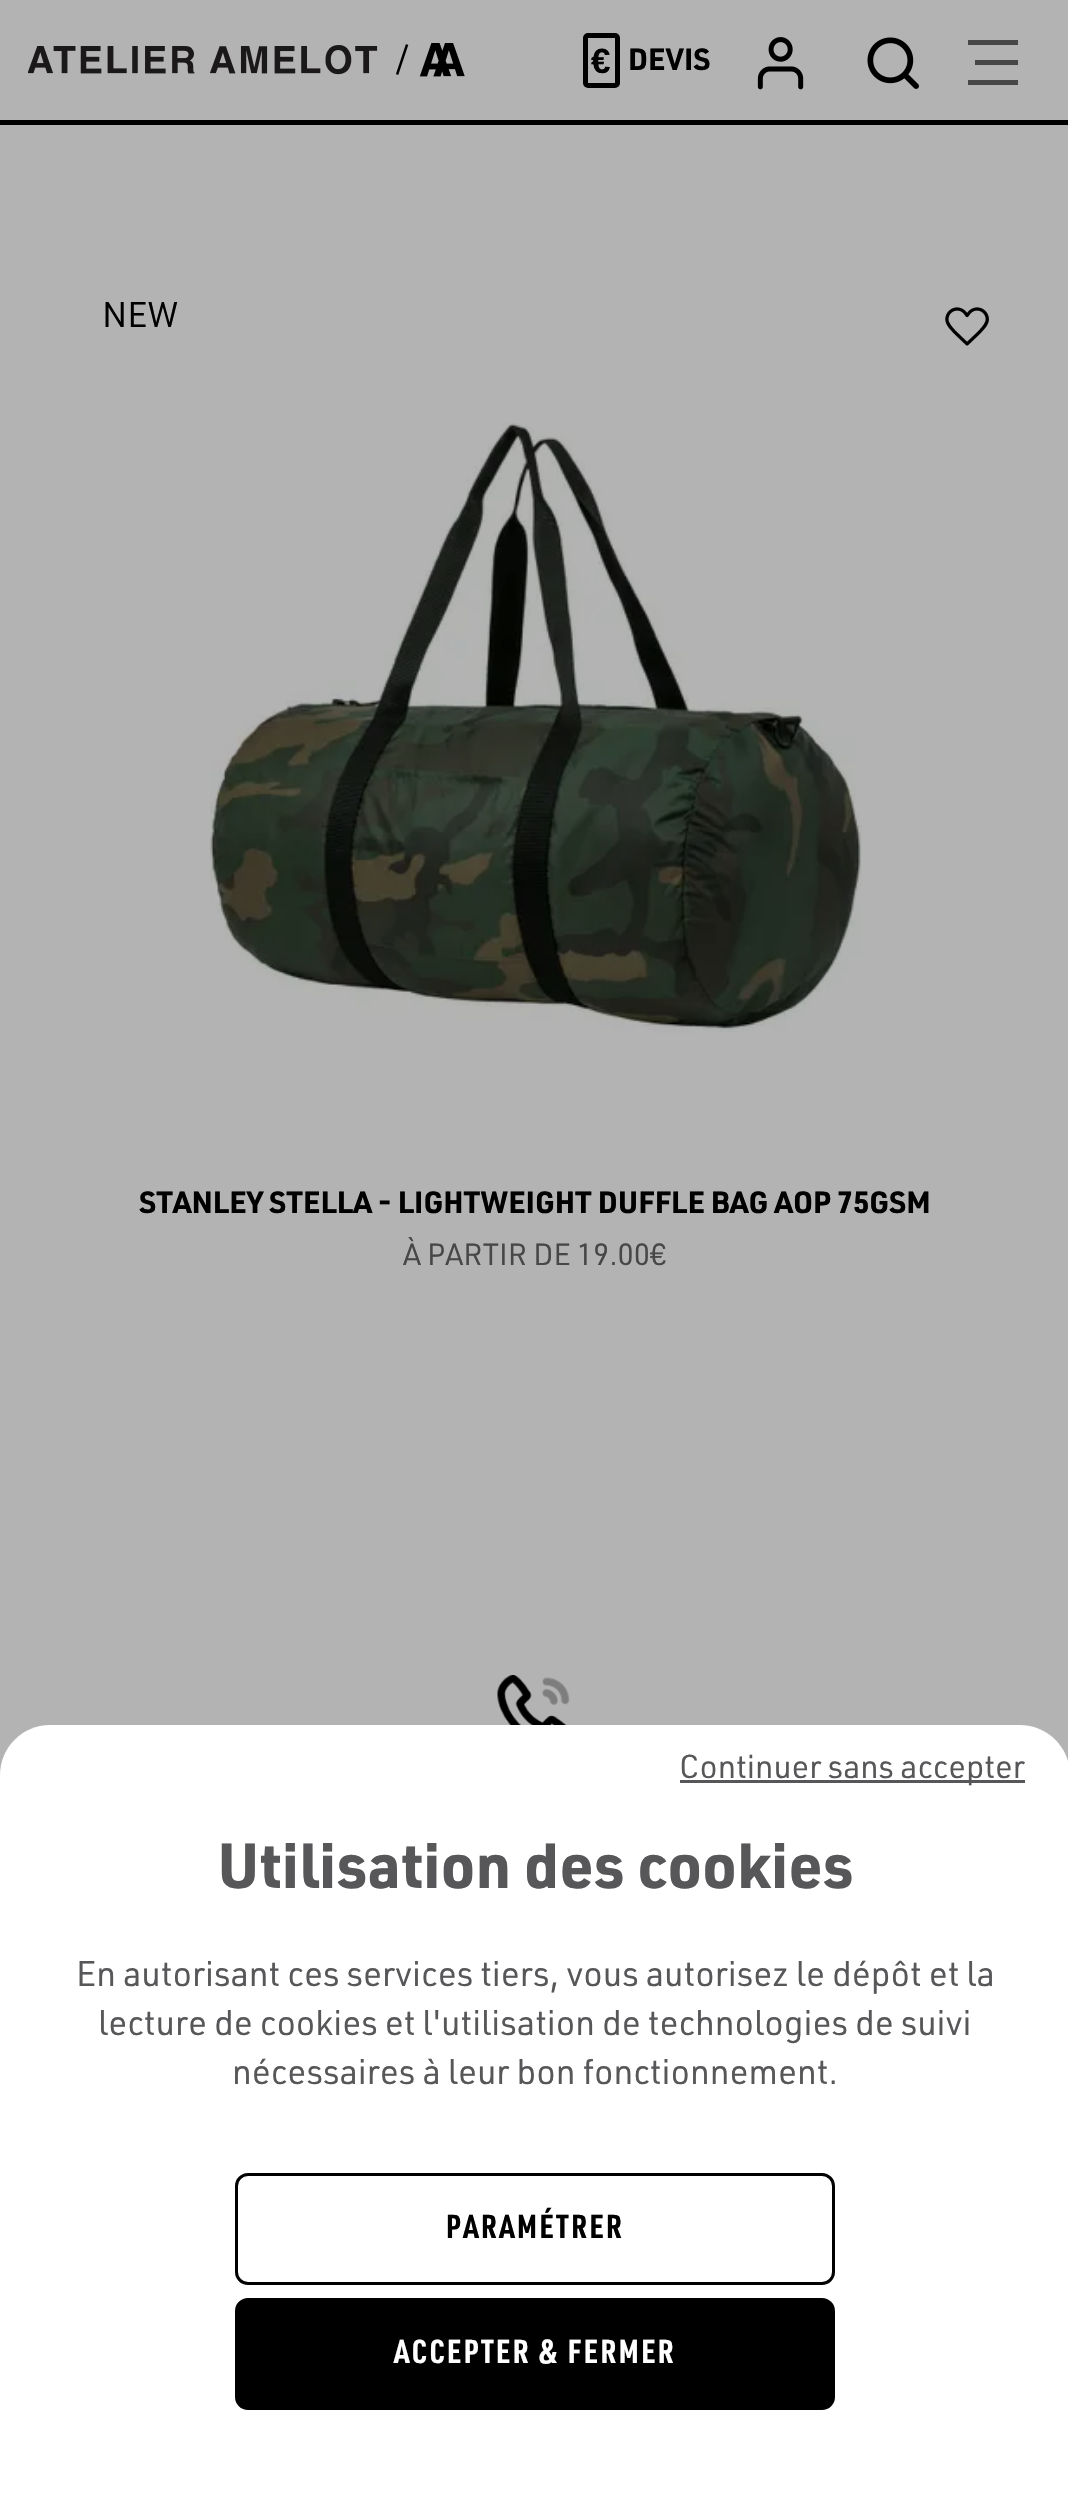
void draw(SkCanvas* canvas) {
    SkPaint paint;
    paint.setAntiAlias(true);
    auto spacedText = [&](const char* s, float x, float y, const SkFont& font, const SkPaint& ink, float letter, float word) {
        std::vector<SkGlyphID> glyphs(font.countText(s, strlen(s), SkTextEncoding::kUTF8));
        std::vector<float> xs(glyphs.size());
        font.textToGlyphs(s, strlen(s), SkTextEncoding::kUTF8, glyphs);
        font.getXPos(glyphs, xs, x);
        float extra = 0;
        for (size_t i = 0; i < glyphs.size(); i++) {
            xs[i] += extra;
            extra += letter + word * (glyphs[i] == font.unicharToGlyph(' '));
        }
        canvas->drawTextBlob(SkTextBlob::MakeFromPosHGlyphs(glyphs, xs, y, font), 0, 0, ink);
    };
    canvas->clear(0xFFB3B3B3);
    paint.setColor(0xFF000000);
    canvas->drawRect(SkRect::MakeXYWH(0, 120, 1068, 5), paint);
    canvas->drawImageRect(SkImages::DeferredFromEncodedData(SkData::MakeFromFileName("img1.png")), SkRect::MakeXYWH(28, 43, 437, 34), SkSamplingOptions());
    paint.setStyle(SkPaint::kStroke_Style);
    paint.setStrokeWidth(5);
    canvas->drawRoundRect(SkRect::MakeXYWH(585.5f, 35.5f, 32, 50), 2.5f, 2.5f, paint);
    SkFont font1(fontMgr->matchFamilyStyle("Liberation Sans", SkFontStyle::Bold()), 35);
    font1.setSubpixel(true);
    paint.setStyle(SkPaint::kFill_Style);
    canvas->drawString("€", 591, 73, font1, paint);
    SkFont font2(fontMgr->matchFamilyStyle("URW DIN", SkFontStyle::Bold()), 30);
    font2.setSubpixel(true);
    canvas->drawString("DEVIS", 628, 70, font2, paint);
    canvas->drawImageRect(SkImages::DeferredFromEncodedData(SkData::MakeFromFileName("img2.png")), SkRect::MakeXYWH(757, 37, 47, 53), SkSamplingOptions());
    canvas->drawImageRect(SkImages::DeferredFromEncodedData(SkData::MakeFromFileName("img3.png")), SkRect::MakeXYWH(867, 37, 52, 52), SkSamplingOptions());
    paint.setColor(0xFF474747);
    canvas->drawRect(SkRect::MakeXYWH(968, 40, 50, 5), paint);
    canvas->drawRect(SkRect::MakeXYWH(975, 60, 43, 5), paint);
    canvas->drawRect(SkRect::MakeXYWH(968, 80, 50, 5), paint);
    SkFont font3(fontMgr->matchFamilyStyle("URW DIN", SkFontStyle::Normal()), 35);
    font3.setSubpixel(true);
    paint.setColor(0xFF000000);
    canvas->drawString("NEW", 102, 327, font3, paint);
    canvas->drawImageRect(SkImages::DeferredFromEncodedData(SkData::MakeFromFileName("img4.png")), SkRect::MakeXYWH(210, 423, 652, 610), SkSamplingOptions());
    canvas->drawString("STANLEY STELLA - LIGHTWEIGHT DUFFLE BAG AOP 75GSM", 139, 1213, font2, paint);
    SkFont font4(fontMgr->matchFamilyStyle("URW DIN", SkFontStyle::Normal()), 30);
    font4.setSubpixel(true);
    paint.setColor(0xFF474747);
    canvas->drawString("À PARTIR DE 19.00€", 403, 1265, font4, paint);
    canvas->drawImageRect(SkImages::DeferredFromEncodedData(SkData::MakeFromFileName("img5.png")), SkRect::MakeXYWH(945, 307, 44, 39), SkSamplingOptions());
    canvas->drawImageRect(SkImages::DeferredFromEncodedData(SkData::MakeFromFileName("img6.png")), SkRect::MakeXYWH(497, 1675, 73, 50), SkSamplingOptions());
    paint.setColor(0xFFFFFFFF);
    canvas->drawPath(SkPathBuilder().moveTo(50, 1725).lineTo(1020, 1725).cubicTo(1047.5f, 1725, 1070, 1747.5f, 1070, 1775).lineTo(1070, 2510).lineTo(0, 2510).lineTo(0, 1775).cubicTo(0, 1747.5f, 22.5f, 1725, 50, 1725).close().detach(), paint);
    paint.setColor(0xFF57575A);
    canvas->drawRect(SkRect::MakeXYWH(680, 1780, 345, 3), paint);
    SkFont font5(fontMgr->matchFamilyStyle("URW DIN", SkFontStyle::Normal()), 32.5f);
    font5.setSubpixel(true);
    canvas->drawString("Continuer sans accepter", 679, 1778, font5, paint);
    paint.setStyle(SkPaint::kStroke_Style);
    paint.setStrokeWidth(3);
    paint.setColor(0xFF000000);
    canvas->drawRoundRect(SkRect::MakeXYWH(236.5f, 2174.5f, 597, 109), 11.5f, 11.5f, paint);
    SkFont font6(fontMgr->matchFamilyStyle("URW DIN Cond", SkFontStyle::Bold()), 32.5f);
    font6.setSubpixel(true);
    paint.setStyle(SkPaint::kFill_Style);
    spacedText("PARAMÉTRER", 446, 2238, font6, paint, 2.5f, 0);
    canvas->drawRoundRect(SkRect::MakeXYWH(236.5f, 2299.5f, 597, 109), 11.5f, 11.5f, paint);
    paint.setStyle(SkPaint::kStroke_Style);
    canvas->drawRoundRect(SkRect::MakeXYWH(236.5f, 2299.5f, 597, 109), 11.5f, 11.5f, paint);
    paint.setStyle(SkPaint::kFill_Style);
    paint.setColor(0xFFFFFFFF);
    spacedText("ACCEPTER & FERMER", 394, 2363, font6, paint, 2.5f, 0);
    SkFont font7(fontMgr->matchFamilyStyle("URW DIN", SkFontStyle::Bold()), 62.5f);
    font7.setSubpixel(true);
    paint.setColor(0xFF57575A);
    canvas->drawString("Utilisation des cookies", 217, 1888, font7, paint);
    canvas->drawString("En autorisant ces services tiers, vous autorisez le dépôt et la", 76, 1986, font3, paint);
    canvas->drawString("lecture de cookies et l'utilisation de technologies de suivi", 98, 2035, font3, paint);
    canvas->drawString("nécessaires à leur bon fonctionnement.", 232, 2084, font3, paint);
}
